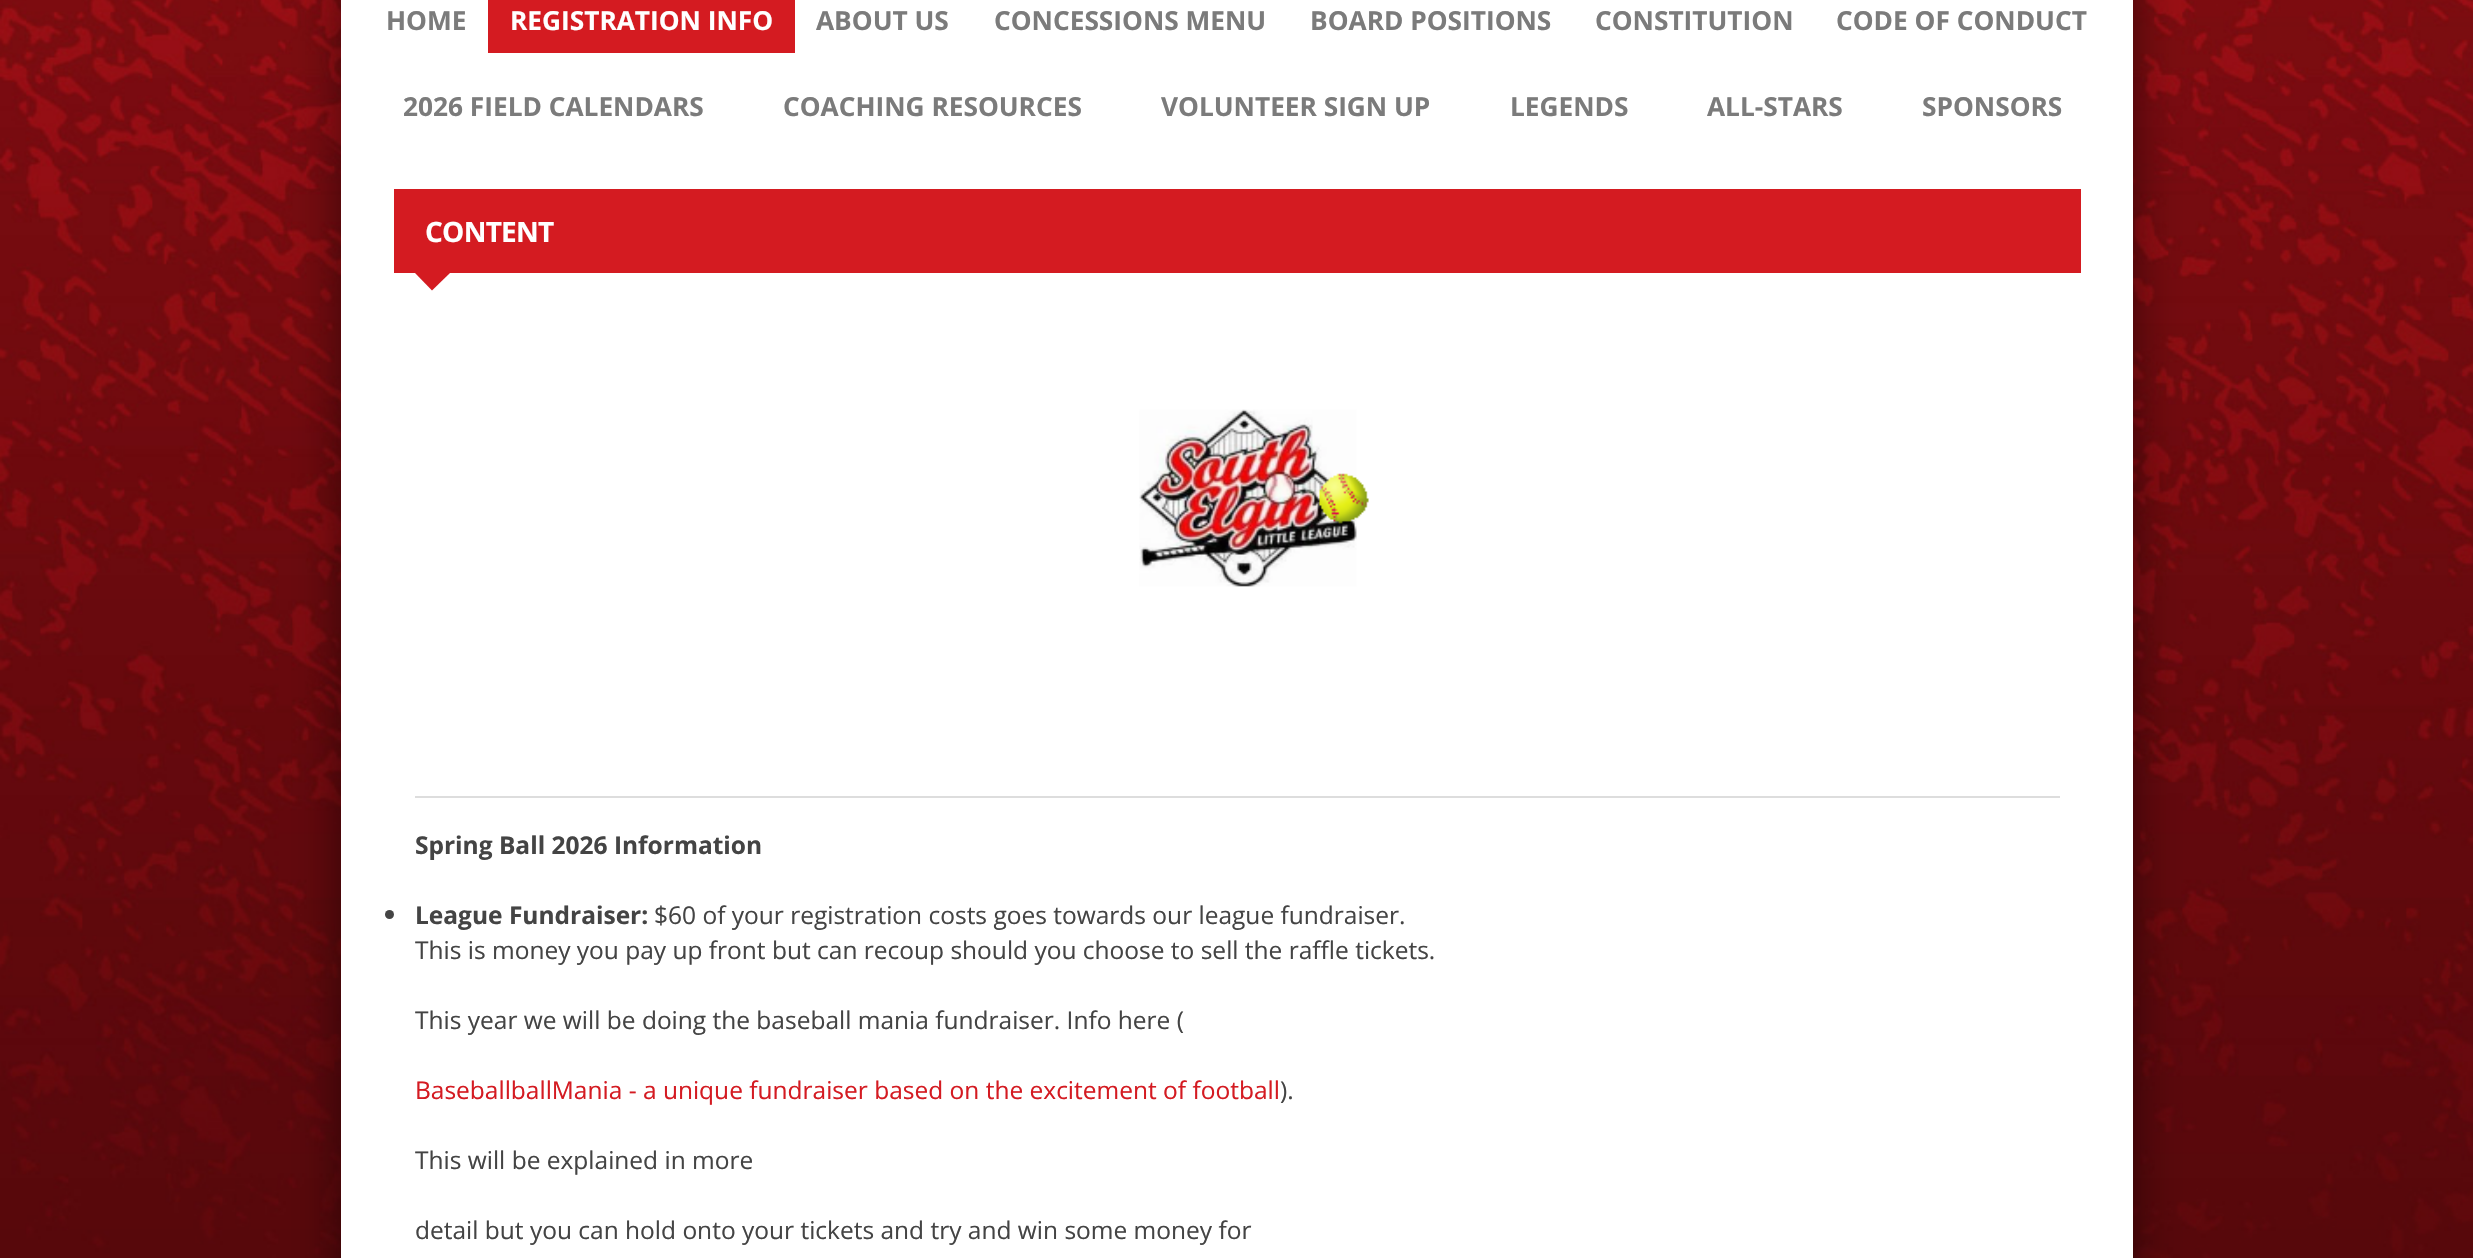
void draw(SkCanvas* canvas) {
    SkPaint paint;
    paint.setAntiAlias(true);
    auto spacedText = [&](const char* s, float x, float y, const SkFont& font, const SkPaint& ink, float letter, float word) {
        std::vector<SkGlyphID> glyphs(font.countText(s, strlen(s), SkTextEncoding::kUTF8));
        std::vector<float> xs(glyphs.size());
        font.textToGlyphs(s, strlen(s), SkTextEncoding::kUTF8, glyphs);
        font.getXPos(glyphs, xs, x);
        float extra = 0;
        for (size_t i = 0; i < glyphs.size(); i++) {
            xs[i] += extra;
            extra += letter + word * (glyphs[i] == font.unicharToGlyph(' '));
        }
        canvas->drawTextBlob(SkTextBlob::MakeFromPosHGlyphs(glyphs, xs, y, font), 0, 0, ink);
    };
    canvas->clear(0xFFFFFFFF);
    canvas->drawImageRect(SkImages::DeferredFromEncodedData(SkData::MakeFromFileName("img1.png")), SkRect::MakeXYWH(0, 0, 2473, 1258), SkSamplingOptions());
    paint.setColor(0xFFFFFFFF);
    canvas->drawRect(SkRect::MakeXYWH(341, 0, 1792, 1258), paint);
    canvas->save();
    canvas->clipPath(SkPathBuilder(SkPathFillType::kEvenOdd).moveTo(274, 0).lineTo(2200, 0).lineTo(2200, 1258).lineTo(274, 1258).close().moveTo(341, -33).lineTo(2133, -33).lineTo(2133, 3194).lineTo(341, 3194).close().detach(), true);
    paint.setColor(0x80000000);
    paint.setMaskFilter(SkMaskFilter::MakeBlur(kNormal_SkBlurStyle, 22));
    canvas->drawRect(SkRect::MakeXYWH(341, -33, 1792, 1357), paint);
    paint.setMaskFilter(nullptr);
    canvas->restore();
    SkFont font1(fontMgr->matchFamilyStyle("Open Sans", SkFontStyle::Bold()), 26.25f);
    font1.setSubpixel(true);
    paint.setColor(0xFF7B7B7B);
    canvas->drawString("HOME", 386, 30, font1, paint);
    paint.setColor(0xFFD41B21);
    canvas->drawRect(SkRect::MakeXYWH(488, 0, 307, 53), paint);
    paint.setColor(0xFFFFFFFF);
    canvas->drawString("REGISTRATION INFO", 510, 30, font1, paint);
    paint.setColor(0xFF7B7B7B);
    canvas->drawString("ABOUT US", 816, 30, font1, paint);
    canvas->drawString("CONCESSIONS MENU", 994, 30, font1, paint);
    canvas->drawString("BOARD POSITIONS", 1310, 30, font1, paint);
    canvas->drawString("CONSTITUTION", 1595, 30, font1, paint);
    canvas->drawString("CODE OF CONDUCT", 1836, 30, font1, paint);
    canvas->drawString("2026 FIELD CALENDARS", 403, 116, font1, paint);
    canvas->drawString("COACHING RESOURCES", 783, 116, font1, paint);
    canvas->drawString("VOLUNTEER SIGN UP", 1161, 116, font1, paint);
    canvas->drawString("LEGENDS", 1510, 116, font1, paint);
    canvas->drawString("ALL-STARS", 1707, 116, font1, paint);
    canvas->drawString("SPONSORS", 1922, 116, font1, paint);
    paint.setColor(0xFFD41B21);
    canvas->drawRect(SkRect::MakeXYWH(394, 189, 1687, 84), paint);
    SkFont font2(fontMgr->matchFamilyStyle("Open Sans", SkFontStyle::Bold()), 28);
    font2.setSubpixel(true);
    paint.setColor(0xFFFFFFFF);
    spacedText("CONTENT", 425, 242, font2, paint, -0.75f, 0);
    paint.setColor(0xFFD41B21);
    canvas->drawPath(SkPathBuilder().moveTo(415, 273).lineTo(450, 273).lineTo(432, 290.5f).close().detach(), paint);
    canvas->drawImageRect(SkImages::DeferredFromEncodedData(SkData::MakeFromFileName("img2.png")), SkRect::MakeXYWH(1139, 409, 230, 178), SkSamplingOptions());
    paint.setColor(0xFFDDDDDD);
    canvas->drawRect(SkRect::MakeXYWH(415, 796, 1645, 2), paint);
    SkFont font3(fontMgr->matchFamilyStyle("Open Sans", SkFontStyle::Bold()), 24.5f);
    font3.setSubpixel(true);
    paint.setColor(0xFF444444);
    canvas->drawString("Spring Ball 2026 Information", 415, 854, font3, paint);
    canvas->drawCircle(389.5f, 914.5f, 4.5f, paint);
    canvas->drawString("League Fundraiser:", 415, 924, font3, paint);
    SkFont font4(fontMgr->matchFamilyStyle("Open Sans", SkFontStyle::Normal()), 24.5f);
    font4.setSubpixel(true);
    canvas->drawString("$60 of your registration costs goes towards our league fundraiser.", 654, 924, font4, paint);
    canvas->drawString("This is money you pay up front but can recoup should you choose to sell the raffle tickets.", 415, 959, font4, paint);
    canvas->drawString("This year we will be doing the baseball mania fundraiser. Info here (", 415, 1029, font4, paint);
    paint.setColor(0xFFD41B22);
    canvas->drawString("BaseballballMania - a unique fundraiser based on the excitement of football", 415, 1099, font4, paint);
    paint.setColor(0xFF444444);
    canvas->drawString(").", 1280, 1099, font4, paint);
    canvas->drawString("This will be explained in more", 415, 1169, font4, paint);
    canvas->drawString("detail but you can hold onto your tickets and try and win some money for", 415, 1239, font4, paint);
}
